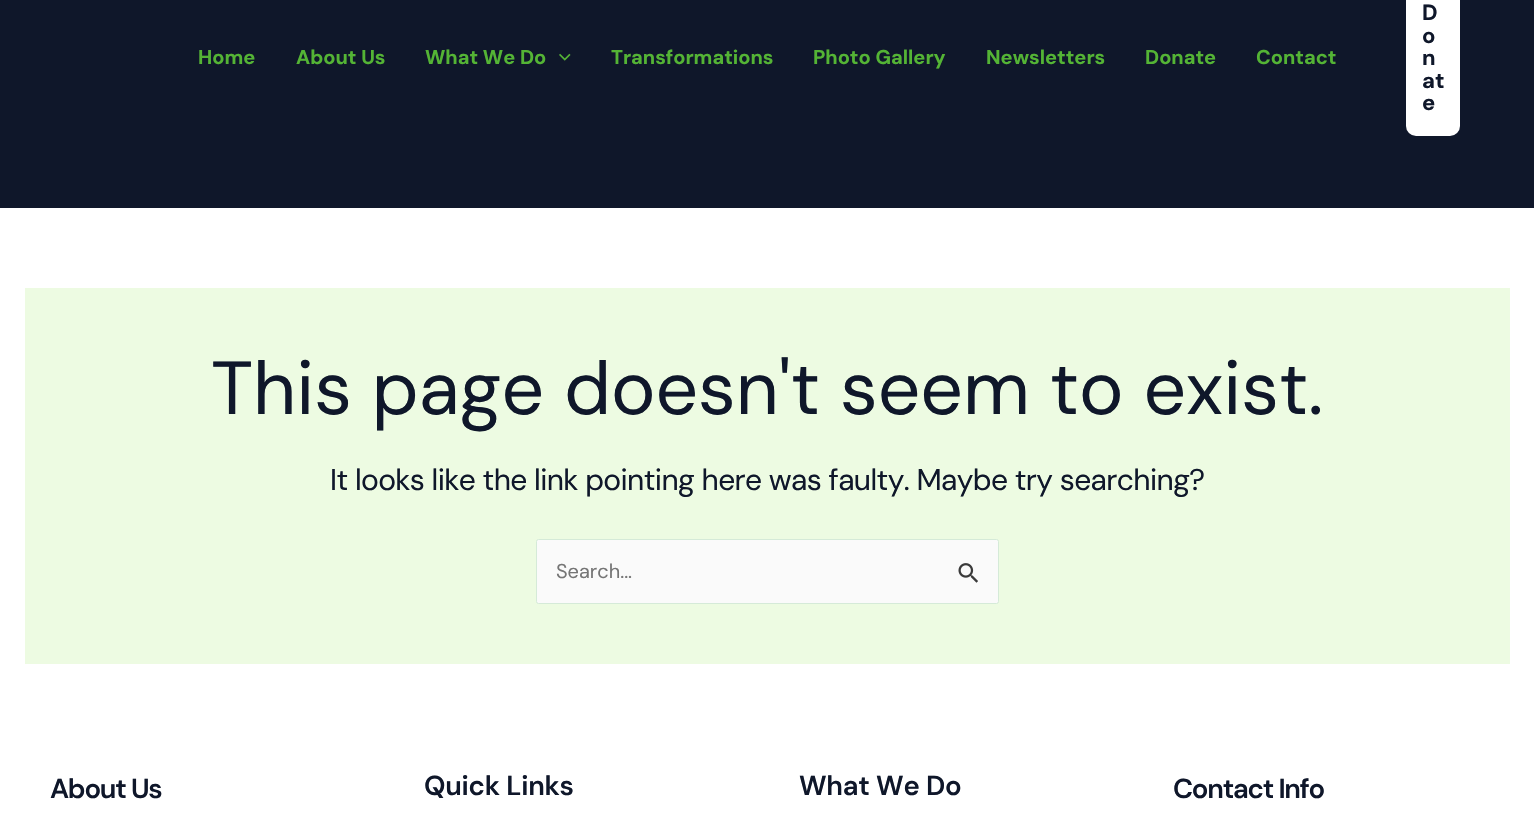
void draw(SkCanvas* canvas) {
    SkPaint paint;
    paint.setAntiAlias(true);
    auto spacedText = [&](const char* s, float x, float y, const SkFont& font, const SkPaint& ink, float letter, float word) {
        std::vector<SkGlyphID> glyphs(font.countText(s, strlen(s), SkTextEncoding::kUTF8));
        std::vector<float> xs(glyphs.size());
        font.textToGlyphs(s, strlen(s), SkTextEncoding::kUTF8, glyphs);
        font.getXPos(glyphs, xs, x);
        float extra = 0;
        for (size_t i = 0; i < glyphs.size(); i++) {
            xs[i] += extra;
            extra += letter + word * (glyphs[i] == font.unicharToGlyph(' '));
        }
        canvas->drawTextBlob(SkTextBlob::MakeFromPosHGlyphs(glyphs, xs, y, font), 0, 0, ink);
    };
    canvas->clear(0xFFFFFFFF);
    paint.setColor(0xFF0F172A);
    canvas->drawRect(SkRect::MakeXYWH(0, 0, 1534, 208), paint);
    SkFont font1(fontMgr->matchFamilyStyle("DM Sans", SkFontStyle::Bold()), 20);
    font1.setSubpixel(true);
    paint.setColor(0xFF54B435);
    canvas->drawString("Home", 198, 64, font1, paint);
    canvas->drawString("About Us", 296, 64, font1, paint);
    canvas->drawString("What We Do", 425, 64, font1, paint);
    canvas->drawImageRect(SkImages::DeferredFromEncodedData(SkData::MakeFromFileName("img1.png")), SkRect::MakeXYWH(559, 53, 12, 8), SkSamplingOptions());
    canvas->drawString("Transformations", 611, 64, font1, paint);
    canvas->drawString("Photo Gallery", 813, 64, font1, paint);
    canvas->drawString("Newsletters", 986, 64, font1, paint);
    canvas->drawString("Donate", 1145, 64, font1, paint);
    canvas->drawString("Contact", 1256, 64, font1, paint);
    paint.setColor(0xFFFFFFFF);
    canvas->drawRoundRect(SkRect::MakeXYWH(1406, -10, 54, 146), 10, 10, paint);
    SkFont font2(fontMgr->matchFamilyStyle("DM Sans", SkFontStyle::Bold()), 22);
    font2.setSubpixel(true);
    paint.setColor(0xFF0F172A);
    canvas->drawString("D", 1422, 20, font2, paint);
    canvas->drawString("o", 1422, 43, font2, paint);
    canvas->drawString("n", 1422, 65, font2, paint);
    canvas->drawString("at", 1422, 88, font2, paint);
    canvas->drawString("e", 1422, 110, font2, paint);
    paint.setColor(0xFFEDFBE2);
    canvas->drawRect(SkRect::MakeXYWH(25, 288, 1485, 376), paint);
    SkFont font3(fontMgr->matchFamilyStyle("DM Sans", SkFontStyle::Normal()), 75);
    font3.setSubpixel(true);
    paint.setColor(0xFF0F172A);
    canvas->drawString("This page doesn't seem to exist.", 211, 414, font3, paint);
    SkFont font4(fontMgr->matchFamilyStyle("DM Sans", SkFontStyle::Normal()), 30);
    font4.setSubpixel(true);
    spacedText("It looks like the link pointing here was faulty. Maybe try searching?", 330, 490, font4, paint, -0.62f, 0);
    paint.setColor(0xFFFAFAFA);
    canvas->drawRoundRect(SkRect::MakeXYWH(536.5f, 539.5f, 462, 64), 2, 2, paint);
    paint.setStyle(SkPaint::kStroke_Style);
    paint.setStrokeWidth(1);
    paint.setColor(0xFFD5EAD8);
    canvas->drawRoundRect(SkRect::MakeXYWH(536.5f, 539.5f, 462, 64), 2, 2, paint);
    SkFont font5(fontMgr->matchFamilyStyle("DM Sans", SkFontStyle::Normal()), 20);
    font5.setSubpixel(true);
    paint.setStyle(SkPaint::kFill_Style);
    paint.setColor(0xFF757575);
    canvas->drawString("Search...", 556, 578, font5, paint);
    canvas->drawImageRect(SkImages::DeferredFromEncodedData(SkData::MakeFromFileName("img2.png")), SkRect::MakeXYWH(958, 563, 20, 20), SkSamplingOptions());
    SkFont font6(fontMgr->matchFamilyStyle("DM Sans", SkFontStyle(600, SkFontStyle::kNormal_Width, SkFontStyle::kUpright_Slant)), 27.5f);
    font6.setSubpixel(true);
    paint.setColor(0xFF0F172A);
    spacedText("About Us", 50, 798, font6, paint, -1.25f, 0);
    spacedText("Quick Links", 424, 795, font6, paint, -0.25f, 0);
    spacedText("What We Do", 799, 795, font6, paint, -0.25f, 0);
    spacedText("Contact Info", 1173, 798, font6, paint, -1.25f, 0);
}
